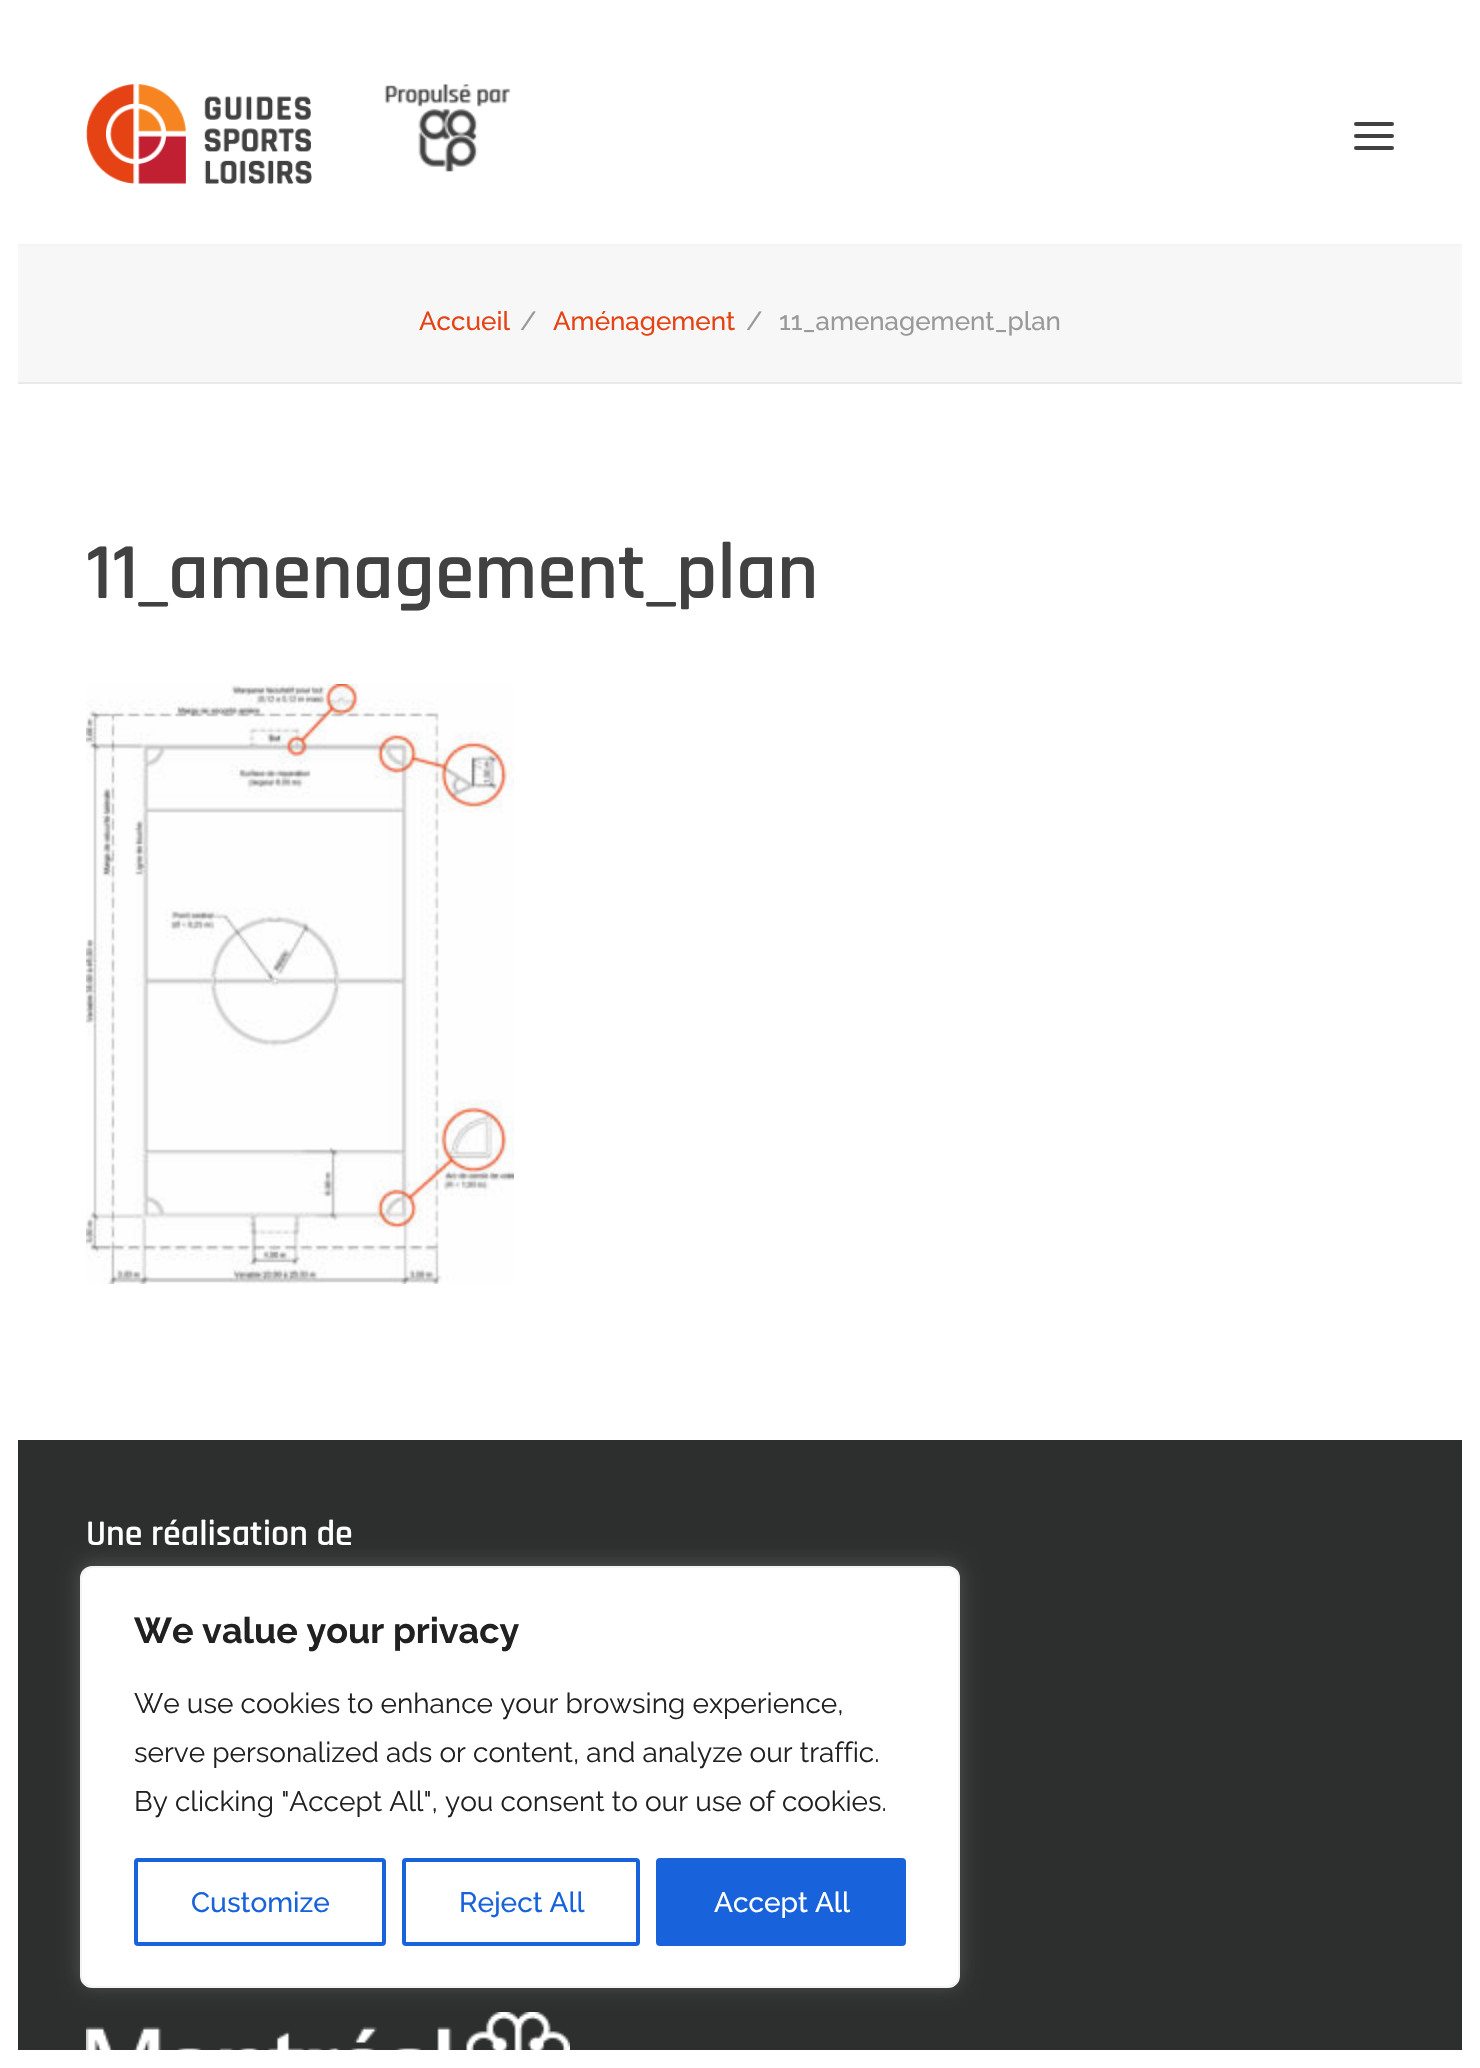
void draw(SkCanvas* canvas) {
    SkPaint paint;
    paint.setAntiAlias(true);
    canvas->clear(0xFFFFFFFF);
    paint.setColor(0xFFF4F4F4);
    canvas->drawRect(SkRect::MakeXYWH(14, 244, 1452, 2), paint);
    paint.setColor(0xFFEAEAEA);
    canvas->drawRect(SkRect::MakeXYWH(14, 382, 1452, 2), paint);
    paint.setColor(0xFFFFFFFF);
    canvas->drawRect(SkRect::MakeXYWH(14, 244, 4, 140), paint);
    canvas->drawRect(SkRect::MakeXYWH(1462, 244, 4, 140), paint);
    canvas->drawImageRect(SkImages::DeferredFromEncodedData(SkData::MakeFromFileName("img1.png")), SkRect::MakeXYWH(86, 84, 226, 100), SkSamplingOptions());
    canvas->drawImageRect(SkImages::DeferredFromEncodedData(SkData::MakeFromFileName("img2.png")), SkRect::MakeXYWH(384, 84, 127, 88), SkSamplingOptions());
    paint.setColor(0xFF414141);
    canvas->drawRoundRect(SkRect::MakeXYWH(1354, 134, 40, 4), 2, 2, paint);
    canvas->drawRoundRect(SkRect::MakeXYWH(1354, 122, 40, 4), 2, 2, paint);
    canvas->drawRoundRect(SkRect::MakeXYWH(1354, 146, 40, 4), 2, 2, paint);
    paint.setColor(0xFFF7F7F7);
    canvas->drawRect(SkRect::MakeXYWH(18, 246, 1444, 136), paint);
    SkFont font1(fontMgr->matchFamilyStyle("Raleway", SkFontStyle(500, SkFontStyle::kNormal_Width, SkFontStyle::kUpright_Slant)), 26);
    font1.setSubpixel(true);
    paint.setColor(0xFFE54314);
    canvas->drawString("Accueil", 419, 330, font1, paint);
    paint.setColor(0xFF999999);
    canvas->drawString("/", 520, 330, font1, paint);
    paint.setColor(0xFFE54314);
    canvas->drawString("Aménagement", 553, 330, font1, paint);
    paint.setColor(0xFF999999);
    canvas->drawString("/", 746, 330, font1, paint);
    canvas->drawString("11_amenagement_plan", 779, 330, font1, paint);
    SkFont font2(fontMgr->matchFamilyStyle("Rajdhani", SkFontStyle(600, SkFontStyle::kNormal_Width, SkFontStyle::kUpright_Slant)), 80);
    font2.setSubpixel(true);
    paint.setColor(0xFF414141);
    canvas->drawString("11_amenagement_plan", 86, 598, font2, paint);
    canvas->drawImageRect(SkImages::DeferredFromEncodedData(SkData::MakeFromFileName("img3.png")), SkRect::MakeXYWH(86, 684, 428, 600), SkSamplingOptions());
    paint.setColor(0xFF2D2E2E);
    canvas->drawRect(SkRect::MakeXYWH(18, 1440, 1444, 610), paint);
    SkFont font3(fontMgr->matchFamilyStyle("Rajdhani", SkFontStyle(600, SkFontStyle::kNormal_Width, SkFontStyle::kUpright_Slant)), 36);
    font3.setSubpixel(true);
    paint.setColor(0xFFFFFFFF);
    canvas->drawString("Une réalisation de", 86, 1545, font3, paint);
    canvas->drawImageRect(SkImages::DeferredFromEncodedData(SkData::MakeFromFileName("img4.png")), SkRect::MakeXYWH(86, 2012, 484, 38), SkSamplingOptions());
    paint.setColor(0x4DACABAB);
    paint.setMaskFilter(SkMaskFilter::MakeBlur(kNormal_SkBlurStyle, 10));
    canvas->drawRoundRect(SkRect::MakeXYWH(80, 1564, 880, 422), 12, 12, paint);
    paint.setMaskFilter(nullptr);
    paint.setColor(0xFFFFFFFF);
    canvas->drawRoundRect(SkRect::MakeXYWH(81, 1567, 878, 420), 11, 11, paint);
    paint.setStyle(SkPaint::kStroke_Style);
    paint.setStrokeWidth(2);
    paint.setColor(0xFFF4F4F4);
    canvas->drawRoundRect(SkRect::MakeXYWH(81, 1567, 878, 420), 11, 11, paint);
    SkFont font4(fontMgr->matchFamilyStyle("Raleway", SkFontStyle::Bold()), 36);
    font4.setSubpixel(true);
    paint.setStyle(SkPaint::kFill_Style);
    paint.setColor(0xFF212121);
    canvas->drawString("We value your privacy", 134, 1643, font4, paint);
    SkFont font5(fontMgr->matchFamilyStyle("Raleway", SkFontStyle::Normal()), 28);
    font5.setSubpixel(true);
    canvas->drawString("We use cookies to enhance your browsing experience,", 134, 1713, font5, paint);
    canvas->drawString("serve personalized ads or content, and analyze our traffic.", 134, 1762, font5, paint);
    canvas->drawString("By clicking \"Accept All\", you consent to our use of cookies.", 134, 1811, font5, paint);
    paint.setStyle(SkPaint::kStroke_Style);
    paint.setStrokeWidth(4);
    paint.setColor(0xFF1863DC);
    canvas->drawRoundRect(SkRect::MakeXYWH(136, 1860, 248, 84), 2, 2, paint);
    SkFont font6(fontMgr->matchFamilyStyle("Raleway", SkFontStyle(500, SkFontStyle::kNormal_Width, SkFontStyle::kUpright_Slant)), 28);
    font6.setSubpixel(true);
    paint.setStyle(SkPaint::kFill_Style);
    canvas->drawString("Customize", 191, 1912, font6, paint);
    paint.setStyle(SkPaint::kStroke_Style);
    canvas->drawRoundRect(SkRect::MakeXYWH(404, 1860, 234, 84), 2, 2, paint);
    paint.setStyle(SkPaint::kFill_Style);
    canvas->drawString("Reject All", 459, 1912, font6, paint);
    canvas->drawRoundRect(SkRect::MakeXYWH(658, 1860, 246, 84), 2, 2, paint);
    paint.setStyle(SkPaint::kStroke_Style);
    canvas->drawRoundRect(SkRect::MakeXYWH(658, 1860, 246, 84), 2, 2, paint);
    paint.setStyle(SkPaint::kFill_Style);
    paint.setColor(0xFFFFFFFF);
    canvas->drawString("Accept All", 714, 1912, font6, paint);
}
